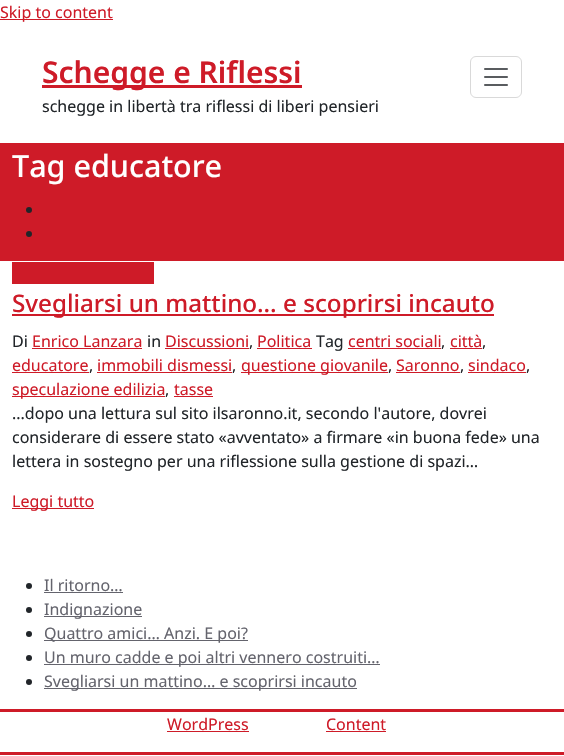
void draw(SkCanvas* canvas) {
    SkPaint paint;
    paint.setAntiAlias(true);
    canvas->clear(0xFFFFFFFF);
    paint.setColor(0xFFCE1B28);
    canvas->drawRect(SkRect::MakeXYWH(0, 19, 113, 1), paint);
    SkFont font1(fontMgr->matchFamilyStyle("Noto Sans", SkFontStyle::Normal()), 16);
    font1.setSubpixel(true);
    canvas->drawString("Skip to content", 0, 18, font1, paint);
    canvas->drawRect(SkRect::MakeXYWH(42, 85, 260, 3), paint);
    SkFont font2(fontMgr->matchFamilyStyle("Noto Sans", SkFontStyle(600, SkFontStyle::kNormal_Width, SkFontStyle::kUpright_Slant)), 30);
    font2.setSubpixel(true);
    canvas->drawString("Schegge e Riflessi", 42, 83, font2, paint);
    paint.setColor(0xFF212529);
    canvas->drawString("schegge in libertà tra riflessi di liberi pensieri", 42, 112, font1, paint);
    paint.setStyle(SkPaint::kStroke_Style);
    paint.setStrokeWidth(1);
    paint.setColor(0xFFD9D9D9);
    canvas->drawRoundRect(SkRect::MakeXYWH(470.5f, 56.5f, 51, 41), 5.5f, 5.5f, paint);
    canvas->drawImageRect(SkImages::DeferredFromEncodedData(SkData::MakeFromFileName("img1.png")), SkRect::MakeXYWH(484, 68, 24, 18), SkSamplingOptions());
    paint.setStyle(SkPaint::kFill_Style);
    paint.setColor(0xFFCE1B28);
    canvas->drawRect(SkRect::MakeXYWH(0, 143, 564, 118), paint);
    SkFont font3(fontMgr->matchFamilyStyle("Noto Sans", SkFontStyle(500, SkFontStyle::kNormal_Width, SkFontStyle::kUpright_Slant)), 30.5f);
    font3.setSubpixel(true);
    paint.setColor(0xFFFFFFFF);
    canvas->drawString("Tag educatore", 12, 177, font3, paint);
    paint.setColor(0xFF212529);
    canvas->drawCircle(29, 210, 3, paint);
    canvas->drawCircle(29, 234, 3, paint);
    paint.setColor(0xFFCE1B28);
    canvas->drawRect(SkRect::MakeXYWH(12, 262, 142, 22), paint);
    canvas->drawRect(SkRect::MakeXYWH(12, 314, 482, 2), paint);
    SkFont font4(fontMgr->matchFamilyStyle("Noto Sans", SkFontStyle(500, SkFontStyle::kNormal_Width, SkFontStyle::kUpright_Slant)), 24.2f);
    font4.setSubpixel(true);
    canvas->drawString("Svegliarsi un mattino… e scoprirsi incauto", 12, 312, font4, paint);
    paint.setColor(0xFF212529);
    canvas->drawString("Di", 12, 347, font1, paint);
    paint.setColor(0xFFCE1B28);
    canvas->drawString("Enrico Lanzara", 32, 347, font1, paint);
    canvas->drawRect(SkRect::MakeXYWH(32, 348, 110, 1), paint);
    paint.setColor(0xFF212529);
    canvas->drawString("in", 147, 347, font1, paint);
    paint.setColor(0xFFCE1B28);
    canvas->drawString("Discussioni", 165, 347, font1, paint);
    paint.setColor(0xFF212529);
    canvas->drawString(",", 249, 347, font1, paint);
    paint.setColor(0xFFCE1B28);
    canvas->drawRect(SkRect::MakeXYWH(165, 348, 84, 1), paint);
    canvas->drawRect(SkRect::MakeXYWH(257, 348, 55, 1), paint);
    canvas->drawString("Politica", 257, 347, font1, paint);
    paint.setColor(0xFF212529);
    canvas->drawString("Tag", 316, 347, font1, paint);
    paint.setColor(0xFFCE1B28);
    canvas->drawString("centri sociali", 348, 347, font1, paint);
    paint.setColor(0xFF212529);
    canvas->drawString(",", 441, 347, font1, paint);
    paint.setColor(0xFFCE1B28);
    canvas->drawRect(SkRect::MakeXYWH(348, 348, 93, 1), paint);
    canvas->drawString("città", 450, 347, font1, paint);
    paint.setColor(0xFF212529);
    canvas->drawString(",", 482, 347, font1, paint);
    paint.setColor(0xFFCE1B28);
    canvas->drawRect(SkRect::MakeXYWH(450, 348, 32, 1), paint);
    canvas->drawString("educatore", 12, 371, font1, paint);
    paint.setColor(0xFF212529);
    canvas->drawString(",", 89, 371, font1, paint);
    paint.setColor(0xFFCE1B28);
    canvas->drawRect(SkRect::MakeXYWH(12, 372, 77, 1), paint);
    canvas->drawString("immobili dismessi", 97, 371, font1, paint);
    paint.setColor(0xFF212529);
    canvas->drawString(",", 232, 371, font1, paint);
    paint.setColor(0xFFCE1B28);
    canvas->drawRect(SkRect::MakeXYWH(97, 372, 135, 1), paint);
    canvas->drawRect(SkRect::MakeXYWH(241, 372, 147, 1), paint);
    canvas->drawString("questione giovanile", 241, 371, font1, paint);
    paint.setColor(0xFF212529);
    canvas->drawString(",", 388, 371, font1, paint);
    paint.setColor(0xFFCE1B28);
    canvas->drawString("Saronno", 396, 371, font1, paint);
    paint.setColor(0xFF212529);
    canvas->drawString(",", 460, 371, font1, paint);
    paint.setColor(0xFFCE1B28);
    canvas->drawRect(SkRect::MakeXYWH(396, 372, 64, 1), paint);
    canvas->drawString("sindaco", 468, 371, font1, paint);
    paint.setColor(0xFF212529);
    canvas->drawString(",", 526, 371, font1, paint);
    paint.setColor(0xFFCE1B28);
    canvas->drawRect(SkRect::MakeXYWH(468, 372, 58, 1), paint);
    canvas->drawRect(SkRect::MakeXYWH(12, 396, 153, 1), paint);
    canvas->drawString("speculazione edilizia", 12, 395, font1, paint);
    paint.setColor(0xFF212529);
    canvas->drawString(",", 165, 395, font1, paint);
    paint.setColor(0xFFCE1B28);
    canvas->drawRect(SkRect::MakeXYWH(174, 396, 39, 1), paint);
    canvas->drawString("tasse", 174, 395, font1, paint);
    paint.setColor(0xFF212529);
    canvas->drawString("...dopo una lettura sul sito ilsaronno.it, secondo l'autore, dovrei", 12, 419, font1, paint);
    canvas->drawString("considerare di essere stato «avventato» a firmare «in buona fede» una", 12, 443, font1, paint);
    canvas->drawString("lettera in sostegno per una riflessione sulla gestione di spazi…", 12, 467, font1, paint);
    paint.setColor(0xFFCE1B28);
    canvas->drawRect(SkRect::MakeXYWH(12, 508, 82, 1), paint);
    canvas->drawString("Leggi tutto", 12, 507, font1, paint);
    paint.setColor(0xFF212529);
    canvas->drawCircle(29, 586, 3, paint);
    paint.setColor(0xFF64646D);
    canvas->drawString("Il ritorno…", 44, 591, font1, paint);
    canvas->drawRect(SkRect::MakeXYWH(44, 592, 79, 1), paint);
    paint.setColor(0xFF212529);
    canvas->drawCircle(29, 610, 3, paint);
    paint.setColor(0xFF64646D);
    canvas->drawRect(SkRect::MakeXYWH(44, 616, 98, 1), paint);
    canvas->drawString("Indignazione", 44, 615, font1, paint);
    paint.setColor(0xFF212529);
    canvas->drawCircle(29, 634, 3, paint);
    paint.setColor(0xFF64646D);
    canvas->drawRect(SkRect::MakeXYWH(44, 640, 204, 1), paint);
    canvas->drawString("Quattro amici… Anzi. E poi?", 44, 639, font1, paint);
    paint.setColor(0xFF212529);
    canvas->drawCircle(29, 658, 3, paint);
    paint.setColor(0xFF64646D);
    canvas->drawRect(SkRect::MakeXYWH(44, 664, 336, 1), paint);
    canvas->drawString("Un muro cadde e poi altri vennero costruiti…", 44, 663, font1, paint);
    paint.setColor(0xFF212529);
    canvas->drawCircle(29, 682, 3, paint);
    paint.setColor(0xFF64646D);
    canvas->drawRect(SkRect::MakeXYWH(44, 688, 313, 1), paint);
    canvas->drawString("Svegliarsi un mattino… e scoprirsi incauto", 44, 687, font1, paint);
    paint.setColor(0xFFCE1B28);
    canvas->drawRect(SkRect::MakeXYWH(0, 709, 564, 3), paint);
    canvas->drawRect(SkRect::MakeXYWH(0, 752, 564, 3), paint);
    canvas->drawString("WordPress", 167, 730, font1, paint);
    canvas->drawRect(SkRect::MakeXYWH(167, 731, 82, 1), paint);
    canvas->drawString("Content", 326, 730, font1, paint);
    canvas->drawRect(SkRect::MakeXYWH(326, 731, 60, 1), paint);
}
